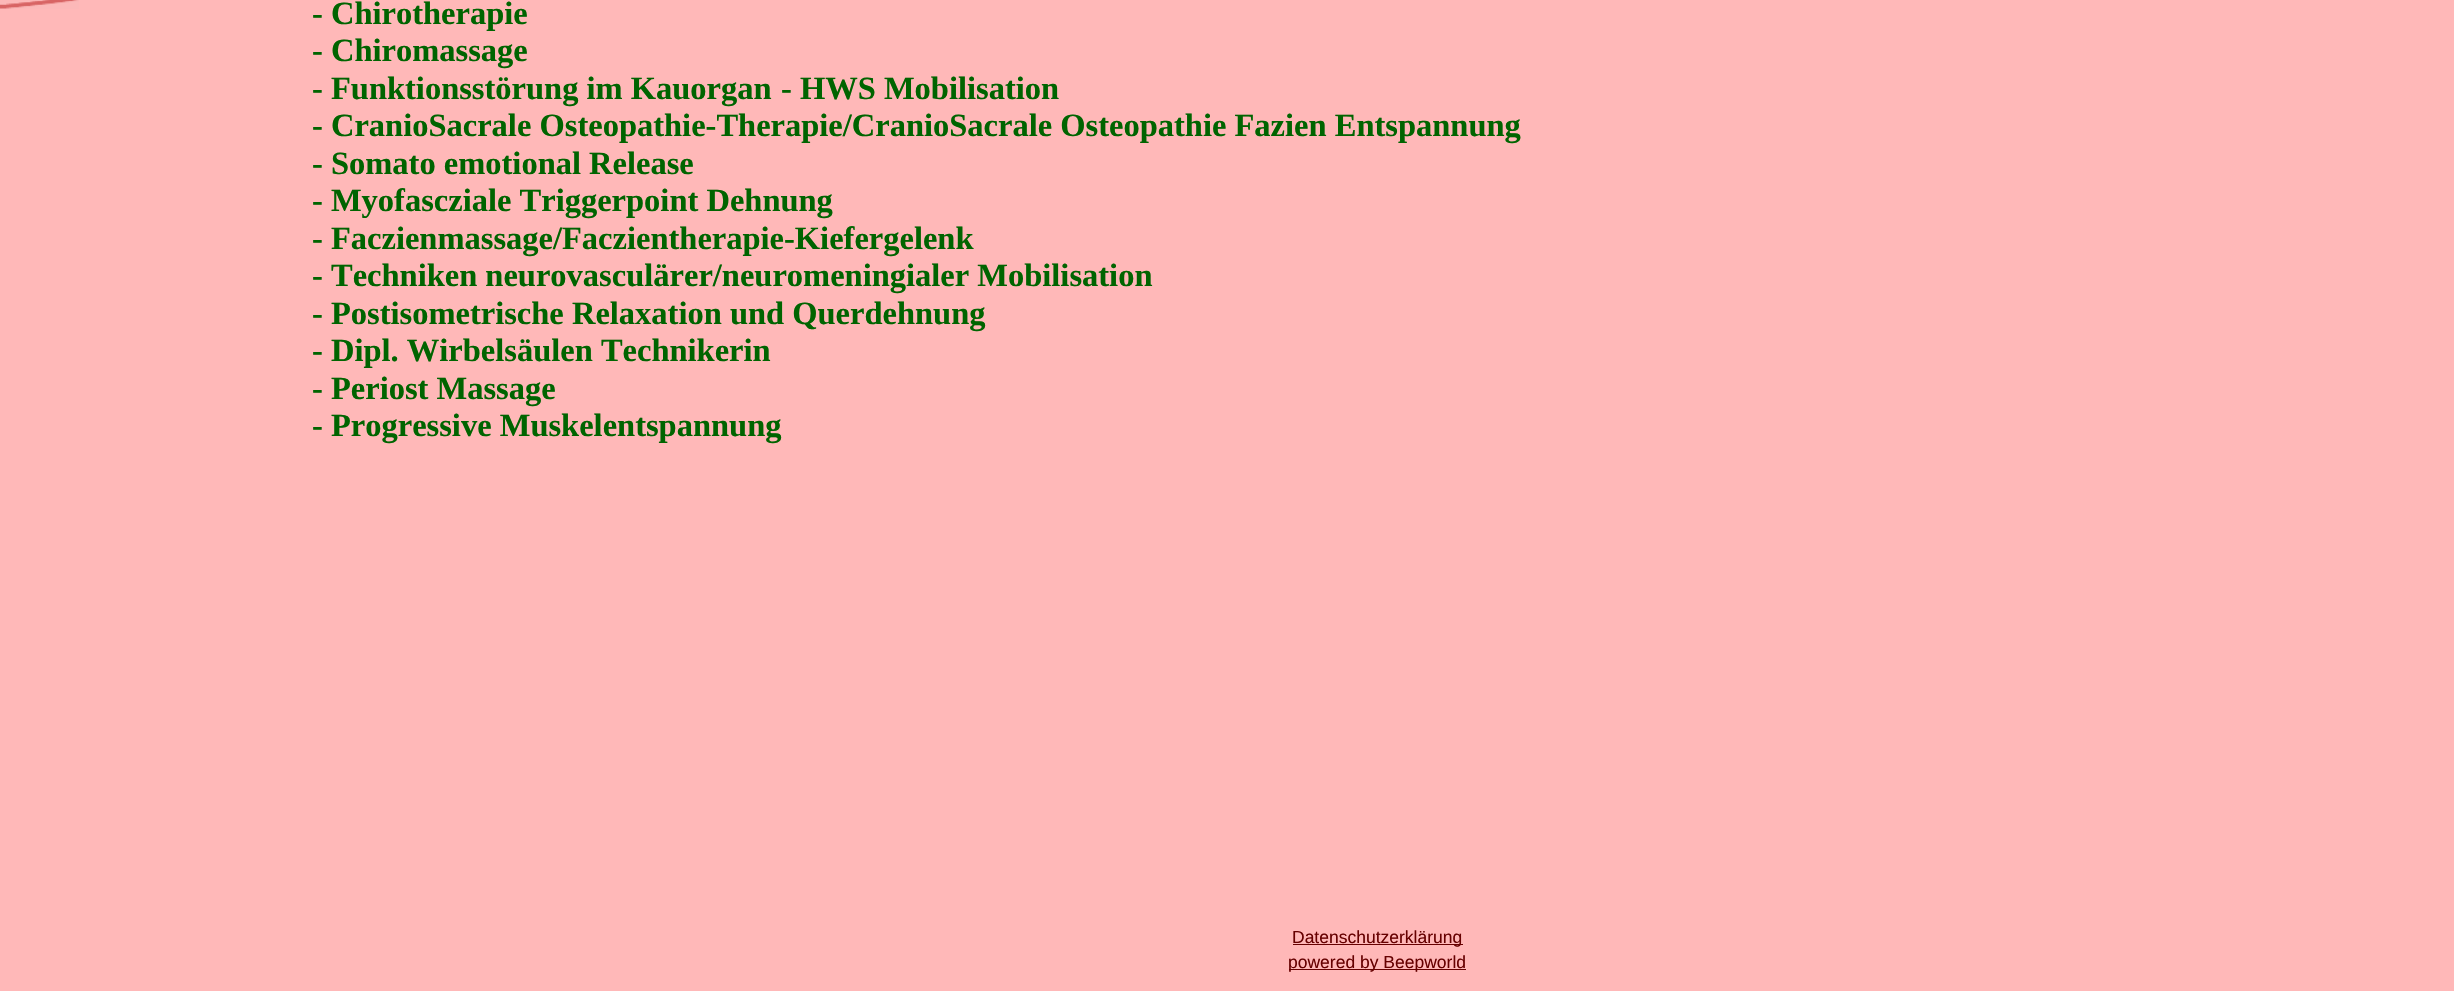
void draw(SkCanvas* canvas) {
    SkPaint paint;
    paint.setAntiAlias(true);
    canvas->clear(0xFFFFB8B8);
    canvas->drawImageRect(SkImages::DeferredFromEncodedData(SkData::MakeFromFileName("img1.png")), SkRect::MakeXYWH(0, 0, 79, 9), SkSamplingOptions());
    SkFont font1(fontMgr->matchFamilyStyle("Liberation Serif", SkFontStyle::Bold()), 32.5f);
    font1.setSubpixel(true);
    paint.setColor(0xFF006400);
    canvas->drawString("- Chirotherapie", 312, 24, font1, paint);
    canvas->drawString("- Chiromassage", 312, 61, font1, paint);
    canvas->drawString("- Funktionsstörung im Kauorgan", 312, 99, font1, paint);
    canvas->drawString("- HWS Mobilisation", 781, 99, font1, paint);
    canvas->drawString("- CranioSacrale Osteopathie-Therapie/CranioSacrale Osteopathie Fazien Entspannung", 312, 136, font1, paint);
    canvas->drawString("- Somato emotional Release", 312, 174, font1, paint);
    canvas->drawString("- Myofascziale Triggerpoint Dehnung", 312, 211, font1, paint);
    canvas->drawString("- Faczienmassage/Faczientherapie-Kiefergelenk", 312, 249, font1, paint);
    canvas->drawString("- Techniken neurovasculärer/neuromeningialer Mobilisation", 312, 286, font1, paint);
    canvas->drawString("- Postisometrische Relaxation und Querdehnung", 312, 324, font1, paint);
    canvas->drawString("- Dipl. Wirbelsäulen Technikerin", 312, 361, font1, paint);
    canvas->drawString("- Periost Massage", 312, 399, font1, paint);
    canvas->drawString("- Progressive Muskelentspannung", 312, 436, font1, paint);
    paint.setColor(0xFF660000);
    canvas->drawRect(SkRect::MakeXYWH(1293, 944, 170, 1), paint);
    SkFont font2(fontMgr->matchFamilyStyle("Liberation Sans", SkFontStyle::Normal()), 17.5f);
    font2.setSubpixel(true);
    canvas->drawString("Datenschutzerklärung", 1292, 943, font2, paint);
    canvas->drawRect(SkRect::MakeXYWH(1289, 969, 177, 1), paint);
    canvas->drawString("powered by Beepworld", 1288, 968, font2, paint);
}
